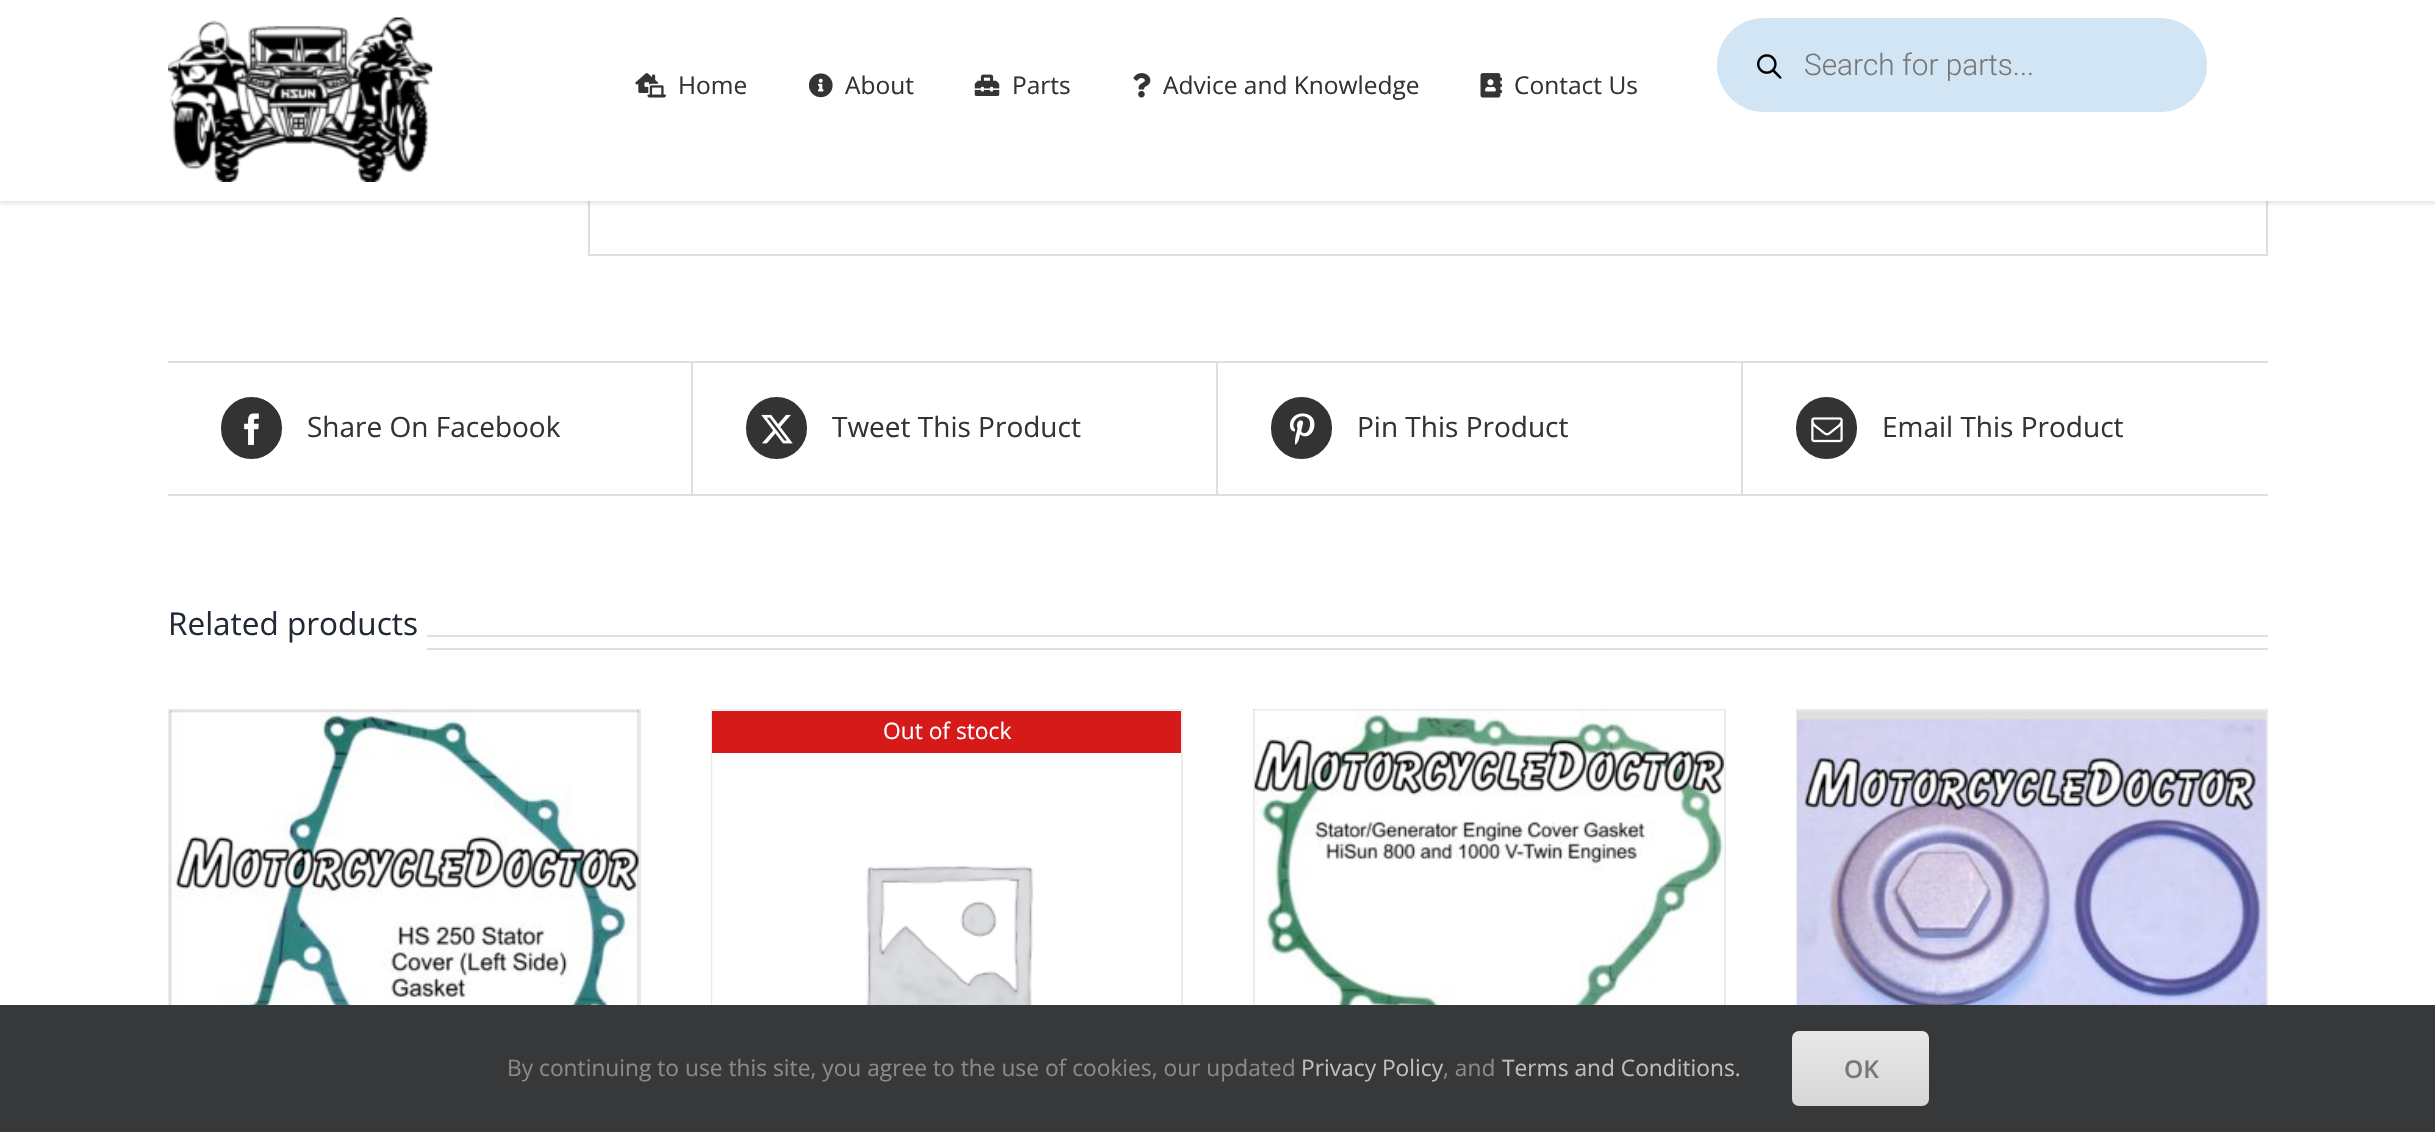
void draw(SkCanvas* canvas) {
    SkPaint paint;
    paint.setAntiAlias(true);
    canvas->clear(0xFFFFFFFF);
    paint.setStyle(SkPaint::kStroke_Style);
    paint.setStrokeWidth(2);
    paint.setColor(0xFFE0DEDE);
    canvas->drawRect(SkRect::MakeXYWH(589, -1, 1678, 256), paint);
    paint.setStyle(SkPaint::kFill_Style);
    paint.setColor(0x1F000000);
    paint.setMaskFilter(SkMaskFilter::MakeBlur(kNormal_SkBlurStyle, 2.5f));
    canvas->drawRect(SkRect::MakeXYWH(0, 2, 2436, 201), paint);
    paint.setMaskFilter(nullptr);
    paint.setColor(0xFFFFFFFF);
    canvas->drawRect(SkRect::MakeXYWH(0, 0, 2435, 201), paint);
    canvas->drawImageRect(SkImages::DeferredFromEncodedData(SkData::MakeFromFileName("img1.png")), SkRect::MakeXYWH(168, 17, 265, 165), SkSamplingOptions());
    paint.setColor(0xFFD2E5F4);
    canvas->drawRoundRect(SkRect::MakeXYWH(1717, 18, 490, 94), 47, 47, paint);
    canvas->drawImageRect(SkImages::DeferredFromEncodedData(SkData::MakeFromFileName("img2.png")), SkRect::MakeXYWH(1757, 54, 25, 25), SkSamplingOptions());
    SkFont font1(fontMgr->matchFamilyStyle("Roboto", SkFontStyle(300, SkFontStyle::kNormal_Width, SkFontStyle::kUpright_Slant)), 29.75f);
    font1.setSubpixel(true);
    paint.setColor(0xFF777777);
    canvas->drawString("Search for parts...", 1804, 75, font1, paint);
    canvas->drawImageRect(SkImages::DeferredFromEncodedData(SkData::MakeFromFileName("img3.png")), SkRect::MakeXYWH(635, 73, 31, 25), SkSamplingOptions());
    SkFont font2(fontMgr->matchFamilyStyle("Open Sans", SkFontStyle::Normal()), 24.5f);
    font2.setSubpixel(true);
    paint.setColor(0xFF333333);
    canvas->drawString("Home", 678, 94, font2, paint);
    canvas->drawImageRect(SkImages::DeferredFromEncodedData(SkData::MakeFromFileName("img4.png")), SkRect::MakeXYWH(809, 73, 24, 25), SkSamplingOptions());
    canvas->drawString("About", 845, 94, font2, paint);
    canvas->drawImageRect(SkImages::DeferredFromEncodedData(SkData::MakeFromFileName("img5.png")), SkRect::MakeXYWH(974, 74, 26, 22), SkSamplingOptions());
    canvas->drawString("Parts", 1012, 94, font2, paint);
    canvas->drawImageRect(SkImages::DeferredFromEncodedData(SkData::MakeFromFileName("img6.png")), SkRect::MakeXYWH(1133, 73, 18, 25), SkSamplingOptions());
    canvas->drawString("Advice and Knowledge", 1163, 94, font2, paint);
    canvas->drawImageRect(SkImages::DeferredFromEncodedData(SkData::MakeFromFileName("img7.png")), SkRect::MakeXYWH(1480, 73, 22, 25), SkSamplingOptions());
    canvas->drawString("Contact Us", 1514, 94, font2, paint);
    paint.setColor(0xFFE0DEDE);
    canvas->drawRect(SkRect::MakeXYWH(168, 361, 2100, 2), paint);
    canvas->drawRect(SkRect::MakeXYWH(168, 494, 2100, 2), paint);
    canvas->drawRect(SkRect::MakeXYWH(691, 362, 2, 132), paint);
    paint.setColor(0xFF333333);
    canvas->drawRoundRect(SkRect::MakeXYWH(222, 398, 59, 60), 29.5f, 29.5f, paint);
    paint.setStyle(SkPaint::kStroke_Style);
    canvas->drawRoundRect(SkRect::MakeXYWH(222, 398, 59, 60), 29.5f, 29.5f, paint);
    canvas->drawImageRect(SkImages::DeferredFromEncodedData(SkData::MakeFromFileName("img8.png")), SkRect::MakeXYWH(244, 413, 15, 32), SkSamplingOptions());
    SkFont font3(fontMgr->matchFamilyStyle("Open Sans", SkFontStyle::Normal()), 28);
    font3.setSubpixel(true);
    paint.setStyle(SkPaint::kFill_Style);
    canvas->drawString("Share On Facebook", 307, 437, font3, paint);
    paint.setColor(0xFFE0DEDE);
    canvas->drawRect(SkRect::MakeXYWH(1216, 362, 2, 132), paint);
    paint.setColor(0xFF333333);
    canvas->drawRoundRect(SkRect::MakeXYWH(747, 398, 59, 60), 29.5f, 29.5f, paint);
    paint.setStyle(SkPaint::kStroke_Style);
    canvas->drawRoundRect(SkRect::MakeXYWH(747, 398, 59, 60), 29.5f, 29.5f, paint);
    canvas->drawImageRect(SkImages::DeferredFromEncodedData(SkData::MakeFromFileName("img9.png")), SkRect::MakeXYWH(761, 414, 32, 30), SkSamplingOptions());
    paint.setStyle(SkPaint::kFill_Style);
    canvas->drawString("Tweet This Product", 832, 437, font3, paint);
    paint.setColor(0xFFE0DEDE);
    canvas->drawRect(SkRect::MakeXYWH(1741, 362, 2, 132), paint);
    paint.setColor(0xFF333333);
    canvas->drawRoundRect(SkRect::MakeXYWH(1272, 398, 59, 60), 29.5f, 29.5f, paint);
    paint.setStyle(SkPaint::kStroke_Style);
    canvas->drawRoundRect(SkRect::MakeXYWH(1272, 398, 59, 60), 29.5f, 29.5f, paint);
    canvas->drawImageRect(SkImages::DeferredFromEncodedData(SkData::MakeFromFileName("img10.png")), SkRect::MakeXYWH(1290, 413, 25, 32), SkSamplingOptions());
    paint.setStyle(SkPaint::kFill_Style);
    canvas->drawString("Pin This Product", 1357, 437, font3, paint);
    canvas->drawRoundRect(SkRect::MakeXYWH(1797, 398, 59, 60), 29.5f, 29.5f, paint);
    paint.setStyle(SkPaint::kStroke_Style);
    canvas->drawRoundRect(SkRect::MakeXYWH(1797, 398, 59, 60), 29.5f, 29.5f, paint);
    canvas->drawImageRect(SkImages::DeferredFromEncodedData(SkData::MakeFromFileName("img11.png")), SkRect::MakeXYWH(1811, 417, 32, 26), SkSamplingOptions());
    paint.setStyle(SkPaint::kFill_Style);
    canvas->drawString("Email This Product", 1882, 437, font3, paint);
    SkFont font4(fontMgr->matchFamilyStyle("Open Sans", SkFontStyle::Normal()), 31.5f);
    font4.setSubpixel(true);
    paint.setColor(0xFF212934);
    canvas->drawString("Related products", 168, 635, font4, paint);
    paint.setColor(0xFFE0DEDE);
    canvas->drawRect(SkRect::MakeXYWH(427, 635, 1841, 2), paint);
    canvas->drawRect(SkRect::MakeXYWH(427, 648, 1841, 2), paint);
    paint.setColor(0xFFEBEAEA);
    canvas->drawRect(SkRect::MakeXYWH(168, 709, 473, 2), paint);
    canvas->drawRect(SkRect::MakeXYWH(639, 709, 2, 296), paint);
    canvas->drawRect(SkRect::MakeXYWH(168, 709, 2, 296), paint);
    canvas->drawImageRect(SkImages::DeferredFromEncodedData(SkData::MakeFromFileName("img12.png")), SkRect::MakeXYWH(169, 710, 470, 295), SkSamplingOptions());
    canvas->drawRect(SkRect::MakeXYWH(711, 709, 472, 2), paint);
    canvas->drawRect(SkRect::MakeXYWH(1181, 709, 2, 296), paint);
    canvas->drawRect(SkRect::MakeXYWH(711, 709, 2, 296), paint);
    canvas->drawImageRect(SkImages::DeferredFromEncodedData(SkData::MakeFromFileName("img13.png")), SkRect::MakeXYWH(712, 710, 470, 295), SkSamplingOptions());
    paint.setColor(0xE6D20000);
    canvas->drawRect(SkRect::MakeXYWH(712, 711, 469, 42), paint);
    SkFont font5(fontMgr->matchFamilyStyle("Open Sans", SkFontStyle::Normal()), 22.75f);
    font5.setSubpixel(true);
    paint.setColor(0xFFFFFFFF);
    canvas->drawString("Out of stock", 883, 739, font5, paint);
    paint.setColor(0xFFEBEAEA);
    canvas->drawRect(SkRect::MakeXYWH(1253, 709, 473, 2), paint);
    canvas->drawRect(SkRect::MakeXYWH(1724, 709, 2, 296), paint);
    canvas->drawRect(SkRect::MakeXYWH(1253, 709, 2, 296), paint);
    canvas->drawImageRect(SkImages::DeferredFromEncodedData(SkData::MakeFromFileName("img14.png")), SkRect::MakeXYWH(1254, 710, 470, 295), SkSamplingOptions());
    canvas->drawRect(SkRect::MakeXYWH(1796, 709, 472, 2), paint);
    canvas->drawRect(SkRect::MakeXYWH(2266, 709, 2, 296), paint);
    canvas->drawRect(SkRect::MakeXYWH(1796, 709, 2, 296), paint);
    paint.setColor(0xFFE0DEDE);
    canvas->drawRect(SkRect::MakeXYWH(1797, 711, 469, 294), paint);
    canvas->drawImageRect(SkImages::DeferredFromEncodedData(SkData::MakeFromFileName("img15.png")), SkRect::MakeXYWH(1797, 719, 470, 286), SkSamplingOptions());
    paint.setColor(0xFF363839);
    canvas->drawRect(SkRect::MakeXYWH(0, 1005, 2435, 127), paint);
    paint.setColor(0xFF8C8989);
    canvas->drawString("By continuing to use this site, you agree to the use of cookies, our updated", 507, 1076, font5, paint);
    paint.setColor(0xFFBFBFBF);
    canvas->drawString("Privacy Policy", 1301, 1076, font5, paint);
    paint.setColor(0xFF8C8989);
    canvas->drawString(", and", 1443, 1076, font5, paint);
    paint.setColor(0xFFBFBFBF);
    canvas->drawString("Terms and Conditions.", 1502, 1076, font5, paint);
    {
        const SkColor colors[] = {0xFFE8E8E8, 0xFFD6D6D6};
        const float stops[] = {0, 1};
        const SkPoint ends[] = {{1860, 1031}, {1860, 1106}};
        paint.setShader(SkGradientShader::MakeLinear(ends, colors, stops, 2, SkTileMode::kClamp));
        paint.setAlpha(255);
    }
    canvas->drawRoundRect(SkRect::MakeXYWH(1792, 1031, 137, 75), 7, 7, paint);
    SkFont font6(fontMgr->matchFamilyStyle("Open Sans", SkFontStyle(600, SkFontStyle::kNormal_Width, SkFontStyle::kUpright_Slant)), 24.5f);
    font6.setSubpixel(true);
    paint.setShader(nullptr);
    paint.setColor(0xFF777777);
    canvas->drawString("OK", 1844, 1078, font6, paint);
}
